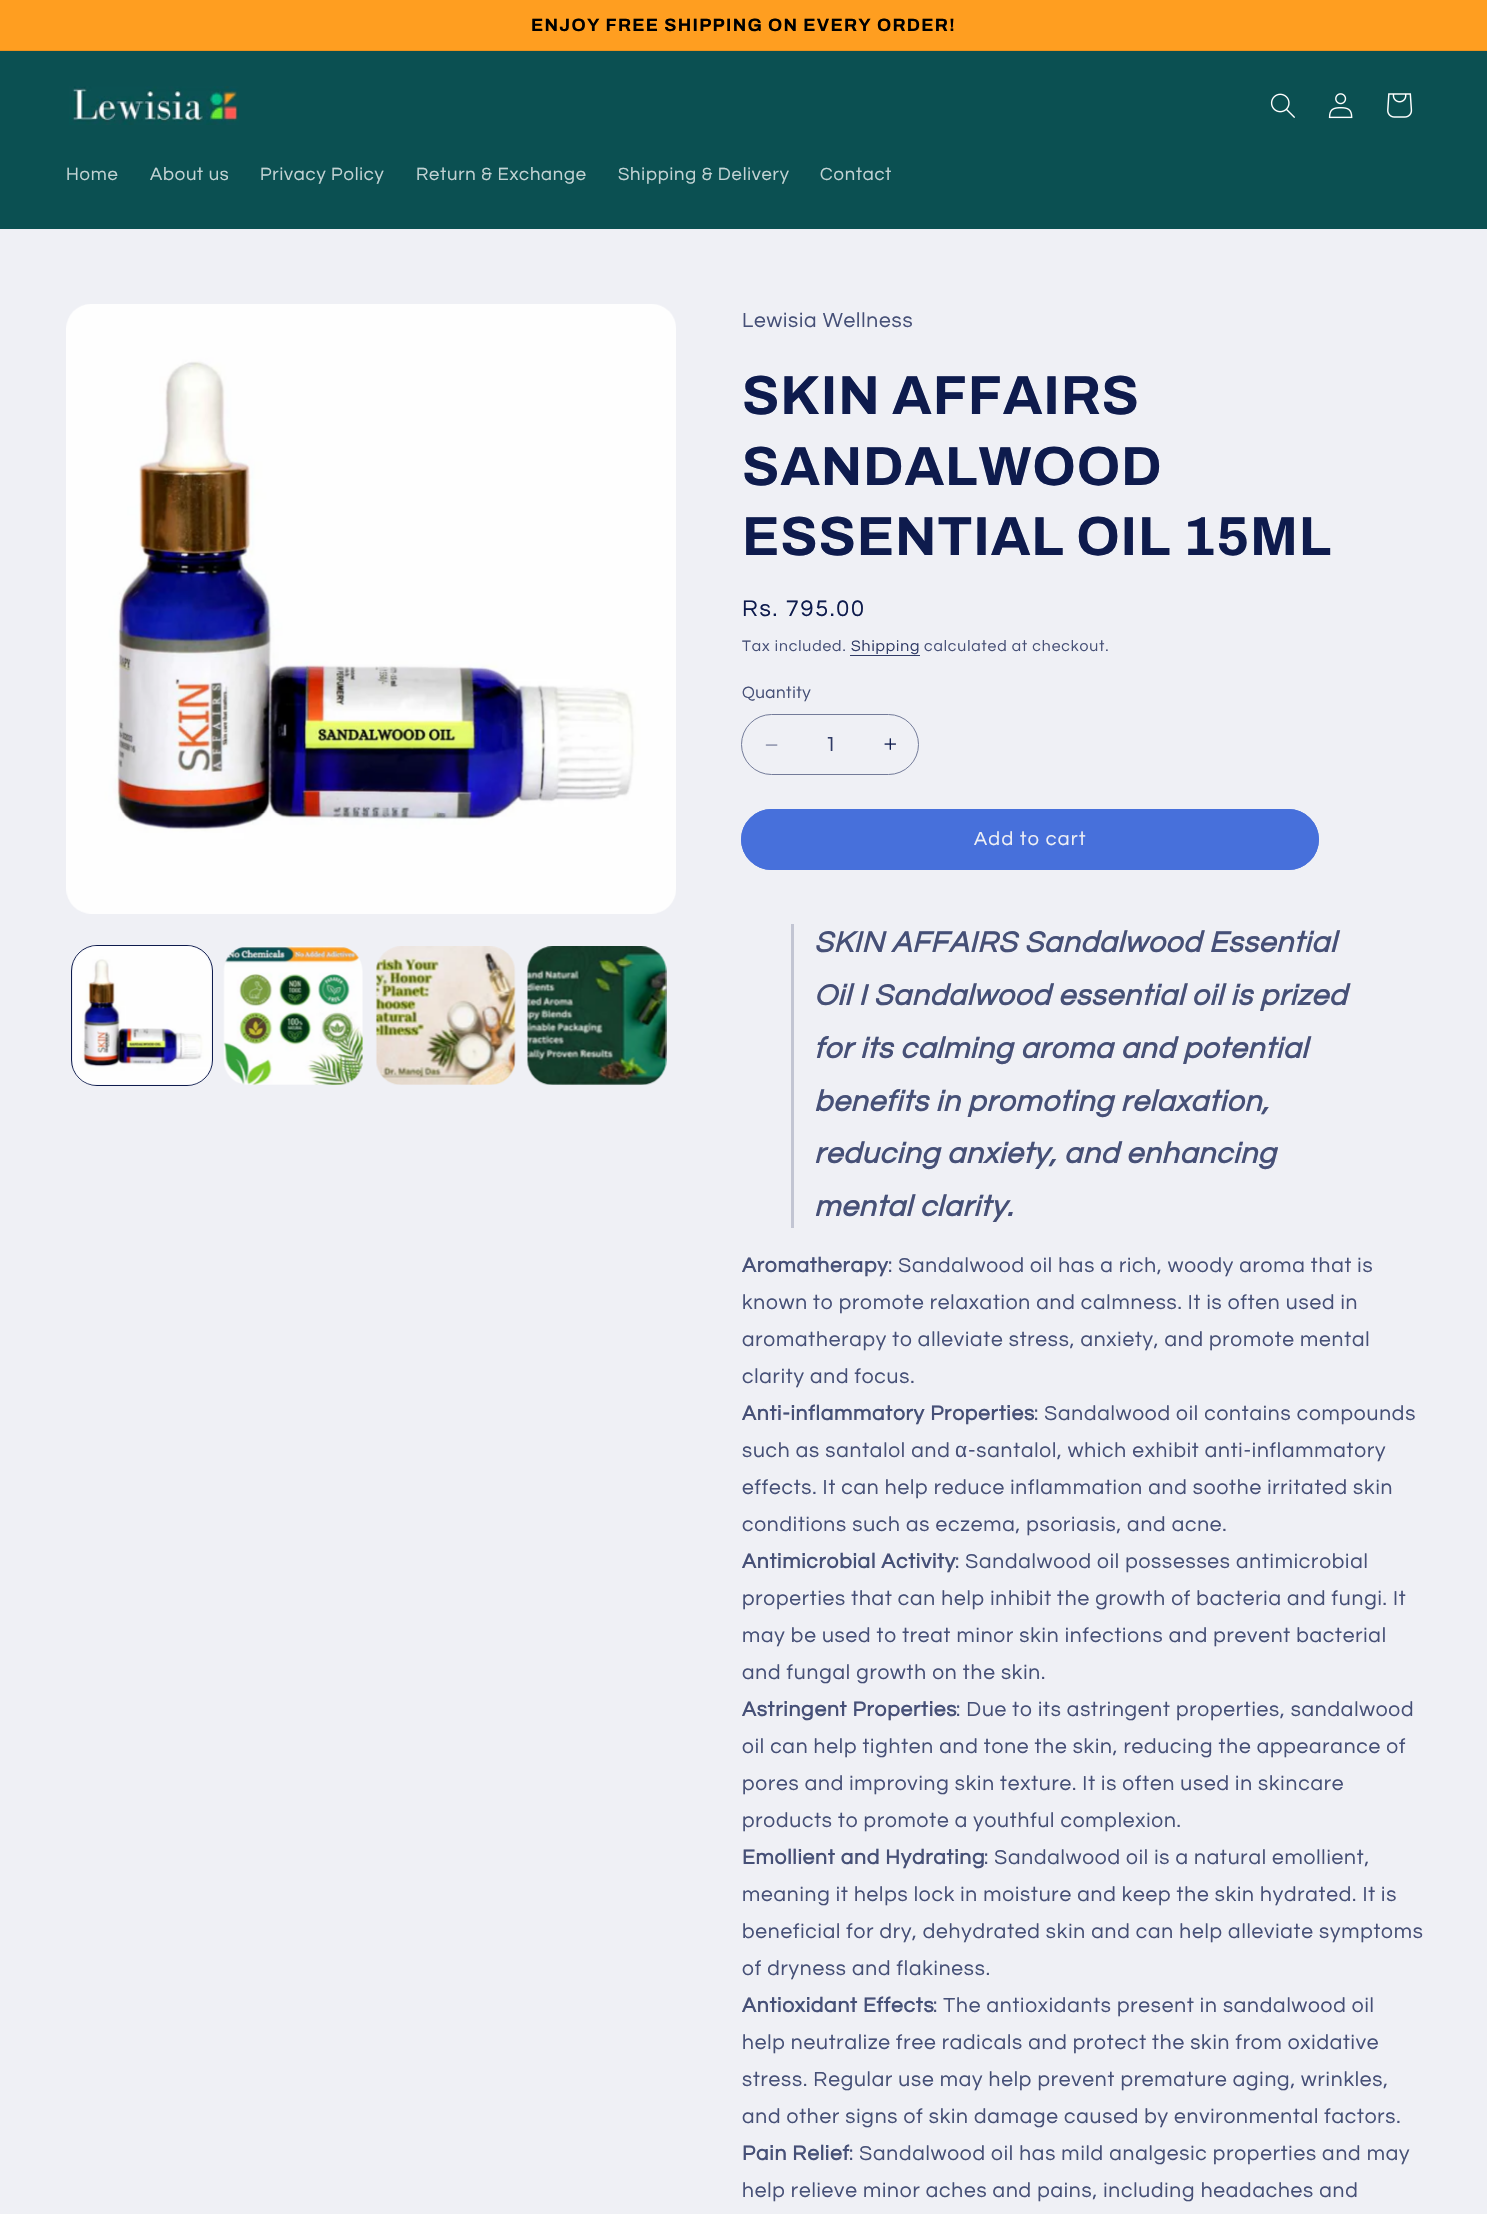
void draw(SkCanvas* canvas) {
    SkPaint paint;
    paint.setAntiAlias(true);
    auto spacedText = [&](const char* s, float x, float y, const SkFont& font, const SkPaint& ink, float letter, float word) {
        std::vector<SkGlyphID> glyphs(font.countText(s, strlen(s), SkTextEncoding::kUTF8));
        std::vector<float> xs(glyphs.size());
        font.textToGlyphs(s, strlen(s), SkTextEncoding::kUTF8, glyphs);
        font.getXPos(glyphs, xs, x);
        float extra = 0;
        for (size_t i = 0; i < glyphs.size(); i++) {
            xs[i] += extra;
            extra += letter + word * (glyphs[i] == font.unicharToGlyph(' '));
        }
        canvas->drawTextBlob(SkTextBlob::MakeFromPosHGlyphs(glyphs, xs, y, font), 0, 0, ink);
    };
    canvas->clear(0xFFEFF0F5);
    paint.setColor(0xFFFF9E20);
    canvas->drawRect(SkRect::MakeXYWH(0, 0, 1487, 50), paint);
    paint.setColor(0xFFEB911D);
    canvas->drawRect(SkRect::MakeXYWH(0, 50, 1487, 1), paint);
    SkFont font1(fontMgr->matchFamilyStyle("Archivo", SkFontStyle::Bold()), 17.9f);
    font1.setSubpixel(true);
    paint.setColor(0xFF000000);
    spacedText("ENJOY FREE SHIPPING ON EVERY ORDER!", 531, 31, font1, paint, 1.3f, 0);
    paint.setColor(0xFF0B5052);
    canvas->drawRect(SkRect::MakeXYWH(0, 51, 1487, 178), paint);
    canvas->drawImageRect(SkImages::DeferredFromEncodedData(SkData::MakeFromFileName("img1.png")), SkRect::MakeXYWH(69, 86, 170, 39), SkSamplingOptions());
    canvas->drawImageRect(SkImages::DeferredFromEncodedData(SkData::MakeFromFileName("img2.png")), SkRect::MakeXYWH(1270, 93, 25, 25), SkSamplingOptions());
    canvas->drawImageRect(SkImages::DeferredFromEncodedData(SkData::MakeFromFileName("img3.png")), SkRect::MakeXYWH(1328, 93, 25, 26), SkSamplingOptions());
    canvas->drawImageRect(SkImages::DeferredFromEncodedData(SkData::MakeFromFileName("img4.png")), SkRect::MakeXYWH(1387, 93, 26, 25), SkSamplingOptions());
    SkFont font2(fontMgr->matchFamilyStyle("Questrial", SkFontStyle::Normal()), 18.4f);
    font2.setSubpixel(true);
    paint.setColor(0xFFC2D3D4);
    spacedText("Home", 66, 180, font2, paint, 0.8f, 0);
    spacedText("About us", 150, 180, font2, paint, 0.8f, 0);
    spacedText("Privacy Policy", 260, 180, font2, paint, 0.8f, 0);
    spacedText("Return & Exchange", 416, 180, font2, paint, 0.8f, 0);
    spacedText("Shipping & Delivery", 618, 180, font2, paint, 0.8f, 0);
    spacedText("Contact", 820, 180, font2, paint, 0.8f, 0);
    canvas->drawImageRect(SkImages::DeferredFromEncodedData(SkData::MakeFromFileName("img5.png")), SkRect::MakeXYWH(66, 304, 610, 610), SkSamplingOptions());
    paint.setStyle(SkPaint::kStroke_Style);
    paint.setStrokeWidth(1);
    paint.setColor(0xFF0E1B4D);
    canvas->drawRoundRect(SkRect::MakeXYWH(71.5f, 945.5f, 141, 140), 25.5f, 25.5f, paint);
    canvas->drawImageRect(SkImages::DeferredFromEncodedData(SkData::MakeFromFileName("img6.png")), SkRect::MakeXYWH(73, 946, 139, 139), SkSamplingOptions());
    canvas->drawImageRect(SkImages::DeferredFromEncodedData(SkData::MakeFromFileName("img7.png")), SkRect::MakeXYWH(223, 946, 140, 139), SkSamplingOptions());
    canvas->drawImageRect(SkImages::DeferredFromEncodedData(SkData::MakeFromFileName("img8.png")), SkRect::MakeXYWH(375, 946, 141, 139), SkSamplingOptions());
    canvas->drawImageRect(SkImages::DeferredFromEncodedData(SkData::MakeFromFileName("img9.png")), SkRect::MakeXYWH(527, 946, 140, 139), SkSamplingOptions());
    SkFont font3(fontMgr->matchFamilyStyle("Questrial", SkFontStyle::Normal()), 21);
    font3.setSubpixel(true);
    paint.setStyle(SkPaint::kFill_Style);
    paint.setColor(0xFF465077);
    spacedText("Lewisia Wellness", 742, 327, font3, paint, 0.8f, 0);
    SkFont font4(fontMgr->matchFamilyStyle("Archivo", SkFontStyle::Bold()), 55);
    font4.setSubpixel(true);
    paint.setColor(0xFF0E1B4D);
    spacedText("SKIN AFFAIRS", 742, 414, font4, paint, 0.8f, 0);
    spacedText("SANDALWOOD", 742, 485, font4, paint, 0.8f, 0);
    spacedText("ESSENTIAL OIL 15ML", 742, 555, font4, paint, 0.8f, 0);
    SkFont font5(fontMgr->matchFamilyStyle("Questrial", SkFontStyle::Normal()), 23.5f);
    font5.setSubpixel(true);
    spacedText("Rs. 795.00", 742, 616, font5, paint, 1.75f, 0);
    SkFont font6(fontMgr->matchFamilyStyle("Questrial", SkFontStyle::Normal()), 15.75f);
    font6.setSubpixel(true);
    paint.setColor(0xFF465077);
    spacedText("Tax included.", 742, 651, font6, paint, 0.9f, 0);
    paint.setColor(0xFF303B66);
    spacedText("Shipping", 851, 651, font6, paint, 0.9f, 0);
    canvas->drawRect(SkRect::MakeXYWH(850, 655, 70, 1), paint);
    paint.setColor(0xFF465077);
    spacedText("calculated at checkout.", 924, 651, font6, paint, 0.9f, 0);
    SkFont font7(fontMgr->matchFamilyStyle("Questrial", SkFontStyle::Normal()), 17);
    font7.setSubpixel(true);
    spacedText("Quantity", 742, 698, font7, paint, 0.5f, 0);
    canvas->drawImageRect(SkImages::DeferredFromEncodedData(SkData::MakeFromFileName("img10.png")), SkRect::MakeXYWH(765, 744, 13, 2), SkSamplingOptions());
    canvas->drawImageRect(SkImages::DeferredFromEncodedData(SkData::MakeFromFileName("img11.png")), SkRect::MakeXYWH(884, 738, 12, 12), SkSamplingOptions());
    paint.setStyle(SkPaint::kStroke_Style);
    paint.setColor(0xFF737B99);
    canvas->drawRoundRect(SkRect::MakeXYWH(741.5f, 714.5f, 177, 60), 30, 30, paint);
    paint.setStyle(SkPaint::kFill_Style);
    paint.setColor(0xFF303B66);
    canvas->drawString("1", 825, 751, font3, paint);
    paint.setColor(0xFF4770DB);
    canvas->drawRoundRect(SkRect::MakeXYWH(741, 809, 578, 61), 30.5f, 30.5f, paint);
    paint.setStyle(SkPaint::kStroke_Style);
    canvas->drawRoundRect(SkRect::MakeXYWH(741.5f, 809.5f, 577, 60), 30, 30, paint);
    SkFont font8(fontMgr->matchFamilyStyle("Questrial", SkFontStyle::Normal()), 19.75f);
    font8.setSubpixel(true);
    paint.setStyle(SkPaint::kFill_Style);
    paint.setColor(0xFFEFF0F5);
    spacedText("Add to cart", 974, 845, font8, paint, 1.3f, 0);
    paint.setColor(0xFFC2C5D3);
    canvas->drawRect(SkRect::MakeXYWH(791, 924, 3, 304), paint);
    SkFont font9(fontMgr->matchFamilyStyle("Questrial", SkFontStyle::BoldItalic()), 30);
    font9.setSubpixel(true);
    paint.setColor(0xFF465077);
    spacedText("SKIN AFFAIRS Sandalwood Essential", 814, 952, font9, paint, 0.8f, 0);
    spacedText("Oil I Sandalwood essential oil is prized", 814, 1005, font9, paint, 0.8f, 0);
    spacedText("for its calming aroma and potential", 814, 1058, font9, paint, 0.8f, 0);
    spacedText("benefits in promoting relaxation,", 814, 1111, font9, paint, 0.8f, 0);
    spacedText("reducing anxiety, and enhancing", 814, 1163, font9, paint, 0.8f, 0);
    spacedText("mental clarity.", 814, 1216, font9, paint, 0.8f, 0);
    SkFont font10(fontMgr->matchFamilyStyle("Questrial", SkFontStyle::Bold()), 21);
    font10.setSubpixel(true);
    spacedText("Aromatherapy", 742, 1272, font10, paint, 0.8f, 0);
    spacedText(": Sandalwood oil has a rich, woody aroma that is", 888, 1272, font3, paint, 0.8f, 0);
    spacedText("known to promote relaxation and calmness. It is often used in", 742, 1309, font3, paint, 0.8f, 0);
    spacedText("aromatherapy to alleviate stress, anxiety, and promote mental", 742, 1346, font3, paint, 0.8f, 0);
    spacedText("clarity and focus.", 742, 1383, font3, paint, 0.8f, 0);
    spacedText("Anti-inflammatory Properties", 742, 1420, font10, paint, 0.8f, 0);
    spacedText(": Sandalwood oil contains compounds", 1034, 1420, font3, paint, 0.8f, 0);
    spacedText("such as santalol and", 742, 1457, font3, paint, 0.8f, 0);
    SkFont font11(fontMgr->matchFamilyStyle("Liberation Sans", SkFontStyle::Normal()), 21);
    font11.setSubpixel(true);
    spacedText("α", 955, 1457, font11, paint, 0.8f, 0);
    spacedText("-santalol, which exhibit anti-inflammatory", 968, 1457, font3, paint, 0.8f, 0);
    spacedText("effects. It can help reduce inflammation and soothe irritated skin", 742, 1494, font3, paint, 0.8f, 0);
    spacedText("conditions such as eczema, psoriasis, and acne.", 742, 1531, font3, paint, 0.8f, 0);
    spacedText("Antimicrobial Activity", 742, 1568, font10, paint, 0.8f, 0);
    spacedText(": Sandalwood oil possesses antimicrobial", 955, 1568, font3, paint, 0.8f, 0);
    spacedText("properties that can help inhibit the growth of bacteria and fungi. It", 742, 1605, font3, paint, 0.8f, 0);
    spacedText("may be used to treat minor skin infections and prevent bacterial", 742, 1642, font3, paint, 0.8f, 0);
    spacedText("and fungal growth on the skin.", 742, 1679, font3, paint, 0.8f, 0);
    spacedText("Astringent Properties", 742, 1716, font10, paint, 0.8f, 0);
    spacedText(": Due to its astringent properties, sandalwood", 956, 1716, font3, paint, 0.8f, 0);
    spacedText("oil can help tighten and tone the skin, reducing the appearance of", 742, 1753, font3, paint, 0.8f, 0);
    spacedText("pores and improving skin texture. It is often used in skincare", 742, 1790, font3, paint, 0.8f, 0);
    spacedText("products to promote a youthful complexion.", 742, 1827, font3, paint, 0.8f, 0);
    spacedText("Emollient and Hydrating", 742, 1864, font10, paint, 0.8f, 0);
    spacedText(": Sandalwood oil is a natural emollient,", 984, 1864, font3, paint, 0.8f, 0);
    spacedText("meaning it helps lock in moisture and keep the skin hydrated. It is", 742, 1901, font3, paint, 0.8f, 0);
    spacedText("beneficial for dry, dehydrated skin and can help alleviate symptoms", 742, 1938, font3, paint, 0.8f, 0);
    spacedText("of dryness and flakiness.", 742, 1975, font3, paint, 0.8f, 0);
    spacedText("Antioxidant Effects", 742, 2012, font10, paint, 0.8f, 0);
    spacedText(": The antioxidants present in sandalwood oil", 933, 2012, font3, paint, 0.8f, 0);
    spacedText("help neutralize free radicals and protect the skin from oxidative", 742, 2049, font3, paint, 0.8f, 0);
    spacedText("stress. Regular use may help prevent premature aging, wrinkles,", 742, 2086, font3, paint, 0.8f, 0);
    spacedText("and other signs of skin damage caused by environmental factors.", 742, 2123, font3, paint, 0.8f, 0);
    spacedText("Pain Relief", 742, 2160, font10, paint, 0.8f, 0);
    spacedText(": Sandalwood oil has mild analgesic properties and may", 849, 2160, font3, paint, 0.8f, 0);
    spacedText("help relieve minor aches and pains, including headaches and", 742, 2197, font3, paint, 0.8f, 0);
}
